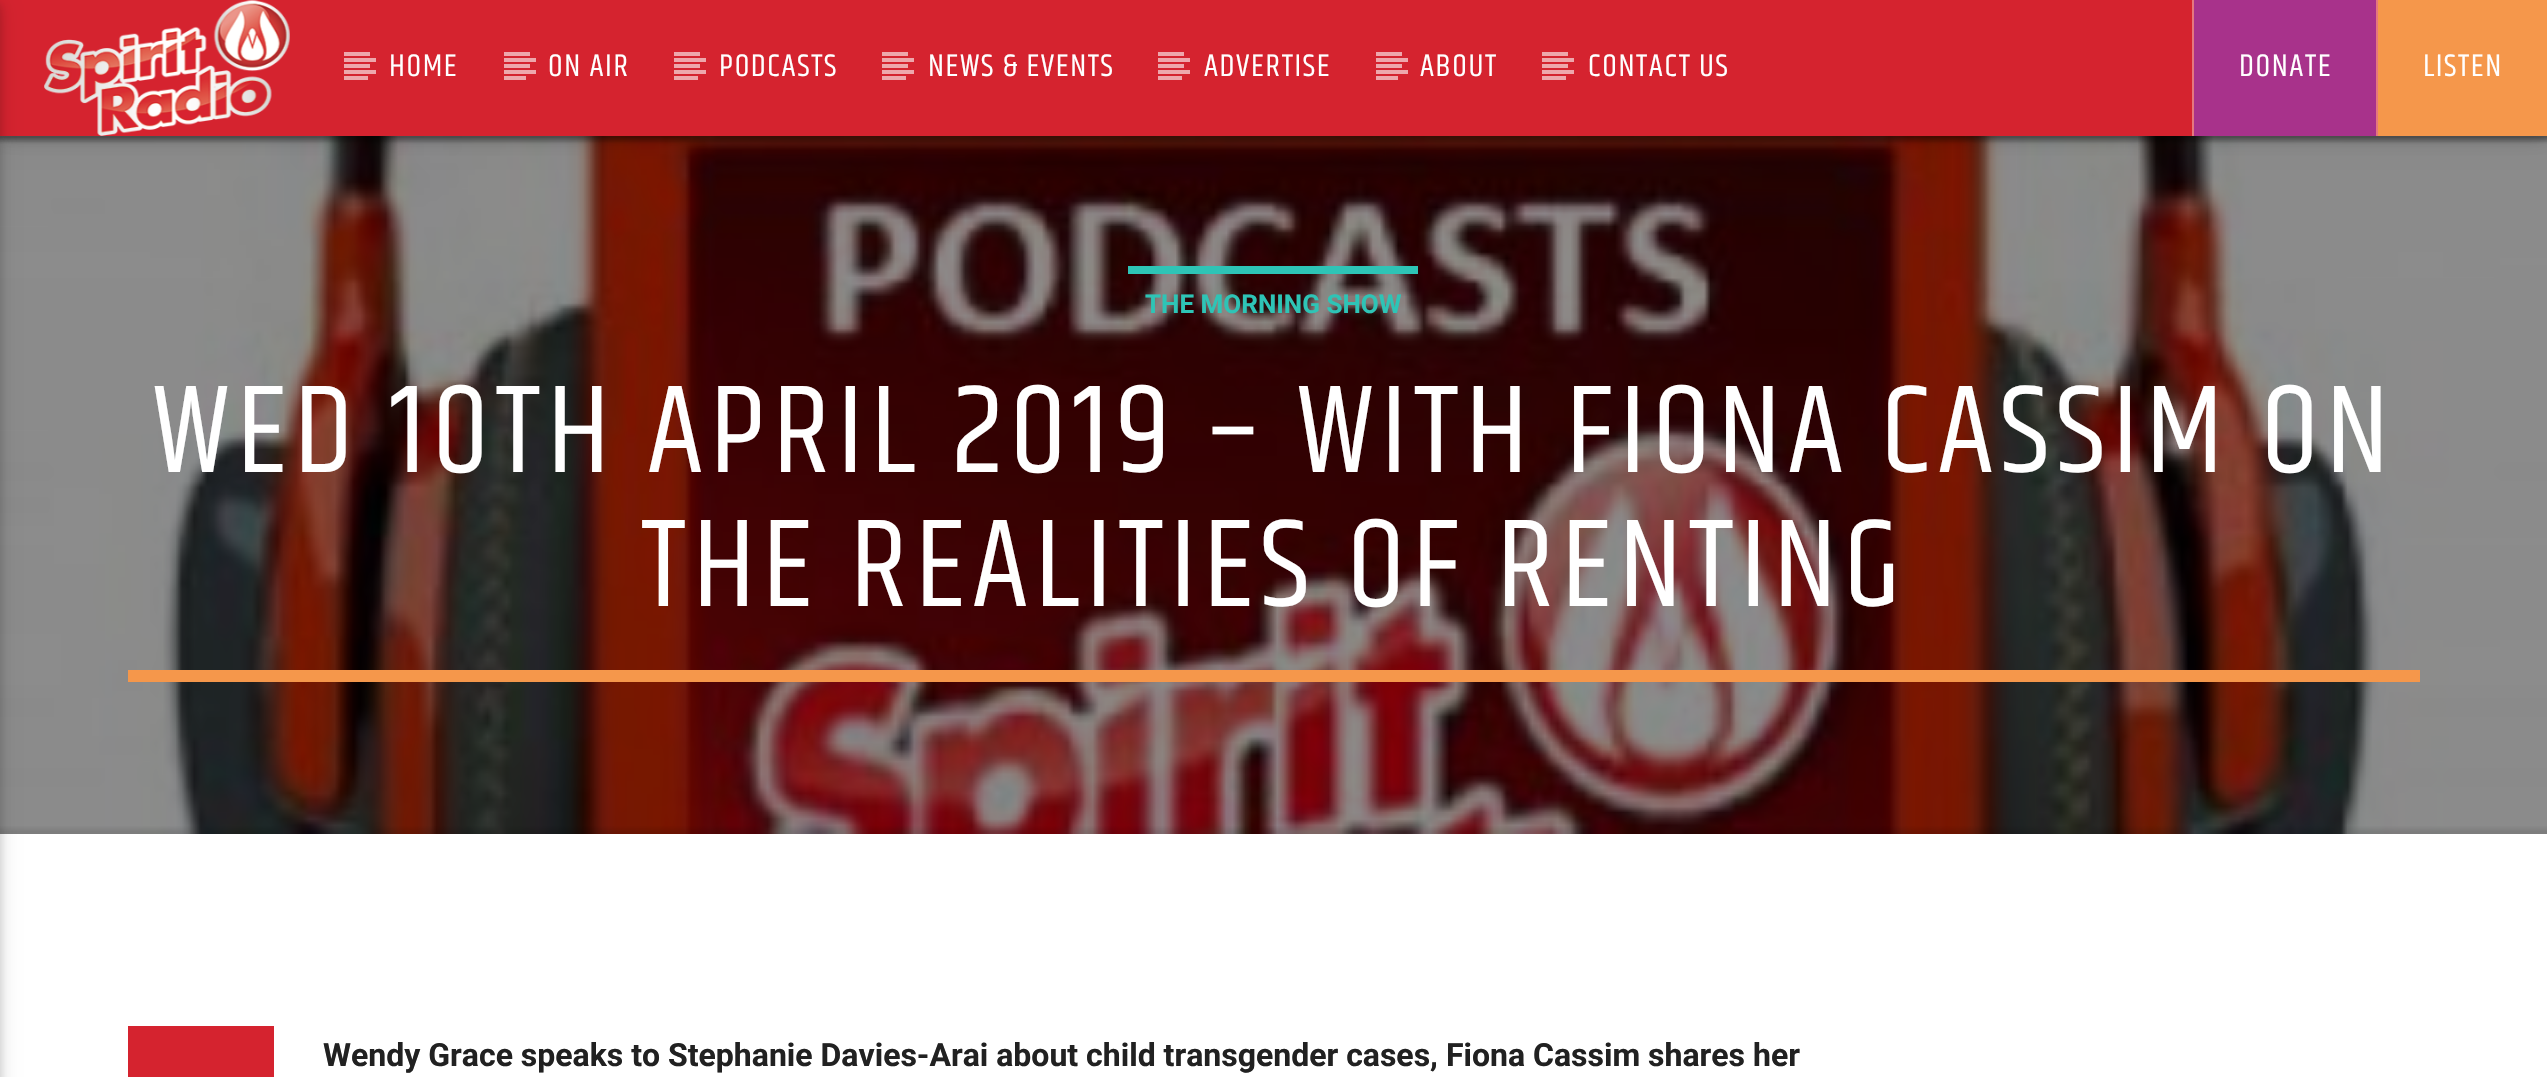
void draw(SkCanvas* canvas) {
    SkPaint paint;
    paint.setAntiAlias(true);
    auto spacedText = [&](const char* s, float x, float y, const SkFont& font, const SkPaint& ink, float letter, float word) {
        std::vector<SkGlyphID> glyphs(font.countText(s, strlen(s), SkTextEncoding::kUTF8));
        std::vector<float> xs(glyphs.size());
        font.textToGlyphs(s, strlen(s), SkTextEncoding::kUTF8, glyphs);
        font.getXPos(glyphs, xs, x);
        float extra = 0;
        for (size_t i = 0; i < glyphs.size(); i++) {
            xs[i] += extra;
            extra += letter + word * (glyphs[i] == font.unicharToGlyph(' '));
        }
        canvas->drawTextBlob(SkTextBlob::MakeFromPosHGlyphs(glyphs, xs, y, font), 0, 0, ink);
    };
    canvas->clear(0xFFFFFFFF);
    paint.setColor(0xFF000000);
    canvas->drawRect(SkRect::MakeXYWH(0, 136, 2547, 698), paint);
    canvas->drawImageRect(SkImages::DeferredFromEncodedData(SkData::MakeFromFileName("img2.png")), SkRect::MakeXYWH(0, 136, 2547, 698), SkSamplingOptions());
    paint.setColor(0x1F000000);
    paint.setMaskFilter(SkMaskFilter::MakeBlur(kNormal_SkBlurStyle, 10));
    canvas->drawRect(SkRect::MakeXYWH(0, 4, 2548, 136), paint);
    paint.setMaskFilter(nullptr);
    paint.setColor(0x29000000);
    paint.setMaskFilter(SkMaskFilter::MakeBlur(kNormal_SkBlurStyle, 5));
    canvas->drawRect(SkRect::MakeXYWH(0, 4, 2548, 136), paint);
    paint.setMaskFilter(nullptr);
    paint.setColor(0xFFD5232F);
    canvas->drawRect(SkRect::MakeXYWH(0, 0, 2192, 136), paint);
    paint.setColor(0x1F000000);
    paint.setMaskFilter(SkMaskFilter::MakeBlur(kNormal_SkBlurStyle, 10));
    canvas->drawRect(SkRect::MakeXYWH(-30, 4, 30, 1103), paint);
    paint.setMaskFilter(nullptr);
    paint.setColor(0x29000000);
    paint.setMaskFilter(SkMaskFilter::MakeBlur(kNormal_SkBlurStyle, 5));
    canvas->drawRect(SkRect::MakeXYWH(-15, 4, 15, 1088), paint);
    paint.setMaskFilter(nullptr);
    canvas->drawImageRect(SkImages::DeferredFromEncodedData(SkData::MakeFromFileName("img1.png")), SkRect::MakeXYWH(44, 0, 246, 136), SkSamplingOptions());
    paint.setColor(0xFFEEA7AC);
    canvas->drawRect(SkRect::MakeXYWH(344, 52, 26, 4), paint);
    canvas->drawRect(SkRect::MakeXYWH(344, 64, 26, 4), paint);
    SkFont font1(fontMgr->matchFamilyStyle("Khand", SkFontStyle::Normal()), 32);
    font1.setSubpixel(true);
    paint.setColor(0xFFFFFFFF);
    spacedText("HOME", 389, 76, font1, paint, 1.6f, 0);
    paint.setColor(0xFFEEA7AC);
    canvas->drawRect(SkRect::MakeXYWH(344, 58, 32, 4), paint);
    canvas->drawRect(SkRect::MakeXYWH(344, 70, 32, 4), paint);
    canvas->drawRect(SkRect::MakeXYWH(344, 76, 24, 4), paint);
    canvas->drawRect(SkRect::MakeXYWH(504, 52, 26, 4), paint);
    canvas->drawRect(SkRect::MakeXYWH(504, 64, 26, 4), paint);
    paint.setColor(0xFFFFFFFF);
    spacedText("ON AIR", 548, 76, font1, paint, 1.6f, 0);
    paint.setColor(0xFFEEA7AC);
    canvas->drawRect(SkRect::MakeXYWH(504, 58, 32, 4), paint);
    canvas->drawRect(SkRect::MakeXYWH(504, 70, 32, 4), paint);
    canvas->drawRect(SkRect::MakeXYWH(504, 76, 22, 4), paint);
    canvas->drawRect(SkRect::MakeXYWH(674, 52, 26, 4), paint);
    canvas->drawRect(SkRect::MakeXYWH(674, 64, 26, 4), paint);
    paint.setColor(0xFFFFFFFF);
    spacedText("PODCASTS", 719, 76, font1, paint, 1.6f, 0);
    paint.setColor(0xFFEEA7AC);
    canvas->drawRect(SkRect::MakeXYWH(674, 58, 32, 4), paint);
    canvas->drawRect(SkRect::MakeXYWH(674, 70, 32, 4), paint);
    canvas->drawRect(SkRect::MakeXYWH(674, 76, 24, 4), paint);
    canvas->drawRect(SkRect::MakeXYWH(882, 52, 26, 4), paint);
    canvas->drawRect(SkRect::MakeXYWH(882, 64, 26, 4), paint);
    paint.setColor(0xFFFFFFFF);
    spacedText("NEWS & EVENTS", 928, 76, font1, paint, 1.6f, 0);
    paint.setColor(0xFFEEA7AC);
    canvas->drawRect(SkRect::MakeXYWH(882, 58, 32, 4), paint);
    canvas->drawRect(SkRect::MakeXYWH(882, 70, 32, 4), paint);
    canvas->drawRect(SkRect::MakeXYWH(882, 76, 24, 4), paint);
    canvas->drawRect(SkRect::MakeXYWH(1158, 52, 26, 4), paint);
    canvas->drawRect(SkRect::MakeXYWH(1158, 64, 26, 4), paint);
    paint.setColor(0xFFFFFFFF);
    spacedText("ADVERTISE", 1204, 76, font1, paint, 1.6f, 0);
    paint.setColor(0xFFEEA7AC);
    canvas->drawRect(SkRect::MakeXYWH(1158, 58, 32, 4), paint);
    canvas->drawRect(SkRect::MakeXYWH(1158, 70, 32, 4), paint);
    canvas->drawRect(SkRect::MakeXYWH(1158, 76, 24, 4), paint);
    canvas->drawRect(SkRect::MakeXYWH(1376, 52, 26, 4), paint);
    canvas->drawRect(SkRect::MakeXYWH(1376, 64, 26, 4), paint);
    paint.setColor(0xFFFFFFFF);
    spacedText("ABOUT", 1420, 76, font1, paint, 1.6f, 0);
    paint.setColor(0xFFEEA7AC);
    canvas->drawRect(SkRect::MakeXYWH(1376, 58, 32, 4), paint);
    canvas->drawRect(SkRect::MakeXYWH(1376, 70, 32, 4), paint);
    canvas->drawRect(SkRect::MakeXYWH(1376, 76, 22, 4), paint);
    canvas->drawRect(SkRect::MakeXYWH(1542, 52, 26, 4), paint);
    canvas->drawRect(SkRect::MakeXYWH(1542, 64, 26, 4), paint);
    paint.setColor(0xFFFFFFFF);
    spacedText("CONTACT US", 1588, 76, font1, paint, 1.6f, 0);
    paint.setColor(0xFFEEA7AC);
    canvas->drawRect(SkRect::MakeXYWH(1542, 58, 32, 4), paint);
    canvas->drawRect(SkRect::MakeXYWH(1542, 70, 32, 4), paint);
    canvas->drawRect(SkRect::MakeXYWH(1542, 76, 24, 4), paint);
    paint.setColor(0xFFE5777E);
    canvas->drawRect(SkRect::MakeXYWH(2192, 0, 2, 136), paint);
    paint.setColor(0xFFA8328B);
    canvas->drawRect(SkRect::MakeXYWH(2194, 0, 182, 136), paint);
    paint.setColor(0xFFFFFFFF);
    spacedText("DONATE", 2239, 76, font1, paint, 1.6f, 0);
    paint.setColor(0xFFE5777E);
    canvas->drawRect(SkRect::MakeXYWH(2376, 0, 2, 136), paint);
    paint.setColor(0xFFF5974B);
    canvas->drawRect(SkRect::MakeXYWH(2378, 0, 169, 136), paint);
    paint.setColor(0xFFFFFFFF);
    spacedText("LISTEN", 2423, 76, font1, paint, 1.6f, 0);
    paint.setColor(0xFF2EC4B6);
    canvas->drawRect(SkRect::MakeXYWH(1128, 266, 290, 8), paint);
    SkFont font2(fontMgr->matchFamilyStyle("Roboto", SkFontStyle::Bold()), 26);
    font2.setSubpixel(true);
    canvas->drawString("THE MORNING SHOW", 1145, 313, font2, paint);
    paint.setColor(0xFFF5974B);
    canvas->drawRect(SkRect::MakeXYWH(128, 670, 2292, 12), paint);
    SkFont font3(fontMgr->matchFamilyStyle("Khand", SkFontStyle::Normal()), 128);
    font3.setSubpixel(true);
    paint.setColor(0xFFFFFFFF);
    spacedText("WED 10TH APRIL 2019 – WITH FIONA CASSIM ON", 152, 472, font3, paint, 6.4f, 0);
    spacedText("THE REALITIES OF RENTING", 641, 606, font3, paint, 6.4f, 0);
    paint.setColor(0xFFD5232F);
    canvas->drawRect(SkRect::MakeXYWH(128, 1026, 146, 51), paint);
    SkFont font4(fontMgr->matchFamilyStyle("Roboto", SkFontStyle::Bold()), 32);
    font4.setSubpixel(true);
    paint.setColor(0xFF212121);
    canvas->drawString("Wendy Grace speaks to Stephanie Davies-Arai about child transgender cases, Fiona Cassim shares her", 323, 1066, font4, paint);
}
